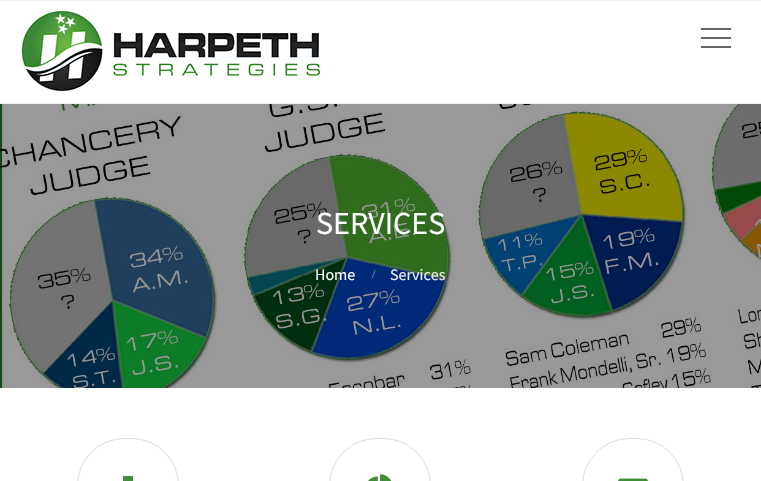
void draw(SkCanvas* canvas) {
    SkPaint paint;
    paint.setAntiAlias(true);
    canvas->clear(0xFFFFFFFF);
    canvas->drawImageRect(SkImages::DeferredFromEncodedData(SkData::MakeFromFileName("img1.png")), SkRect::MakeXYWH(0, 104, 761, 284), SkSamplingOptions());
    paint.setColor(0xFFF0F0F0);
    canvas->drawRect(SkRect::MakeXYWH(0, 0, 761, 1), paint);
    canvas->drawRect(SkRect::MakeXYWH(0, 103, 761, 1), paint);
    canvas->drawImageRect(SkImages::DeferredFromEncodedData(SkData::MakeFromFileName("img2.png")), SkRect::MakeXYWH(21, 11, 299, 80), SkSamplingOptions());
    paint.setColor(0xFF666666);
    canvas->drawRect(SkRect::MakeXYWH(701, 28, 30, 2), paint);
    canvas->drawRect(SkRect::MakeXYWH(701, 46, 30, 2), paint);
    canvas->drawRect(SkRect::MakeXYWH(701, 37, 30, 2), paint);
    paint.setColor(0x66000000);
    canvas->drawRect(SkRect::MakeXYWH(0, 104, 761, 284), paint);
    SkFont font1(fontMgr->matchFamilyStyle("Source Sans Pro", SkFontStyle::Normal()), 32);
    font1.setSubpixel(true);
    paint.setColor(0xFFFFFFFF);
    canvas->drawString("SERVICES", 316, 234, font1, paint);
    SkFont font2(fontMgr->matchFamilyStyle("Source Sans Pro", SkFontStyle::Normal()), 16);
    font2.setSubpixel(true);
    canvas->drawString("Home", 315, 280, font2, paint);
    SkFont font3(fontMgr->matchFamilyStyle("Liberation Serif", SkFontStyle::Bold()), 12);
    font3.setSubpixel(true);
    paint.setColor(0xFF6F83AA);
    canvas->drawString("/", 372, 278, font3, paint);
    paint.setColor(0xFFEEEEEE);
    canvas->drawString("Services", 390, 280, font2, paint);
    paint.setStyle(SkPaint::kStroke_Style);
    paint.setStrokeWidth(1);
    paint.setColor(0xFFDDDDDD);
    canvas->drawRoundRect(SkRect::MakeXYWH(77.5f, 438.5f, 101, 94), 50.5f, 50.5f, paint);
    paint.setStyle(SkPaint::kFill_Style);
    paint.setColor(0xFF418E38);
    canvas->drawRect(SkRect::MakeXYWH(123, 476, 10, 5), paint);
    paint.setStyle(SkPaint::kStroke_Style);
    paint.setColor(0xFFDDDDDD);
    canvas->drawRoundRect(SkRect::MakeXYWH(329.5f, 438.5f, 101, 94), 50.5f, 50.5f, paint);
    canvas->drawImageRect(SkImages::DeferredFromEncodedData(SkData::MakeFromFileName("img3.png")), SkRect::MakeXYWH(368, 474, 24, 7), SkSamplingOptions());
    canvas->drawRoundRect(SkRect::MakeXYWH(582.5f, 438.5f, 101, 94), 50.5f, 50.5f, paint);
    canvas->drawImageRect(SkImages::DeferredFromEncodedData(SkData::MakeFromFileName("img4.png")), SkRect::MakeXYWH(618, 478, 30, 3), SkSamplingOptions());
}
